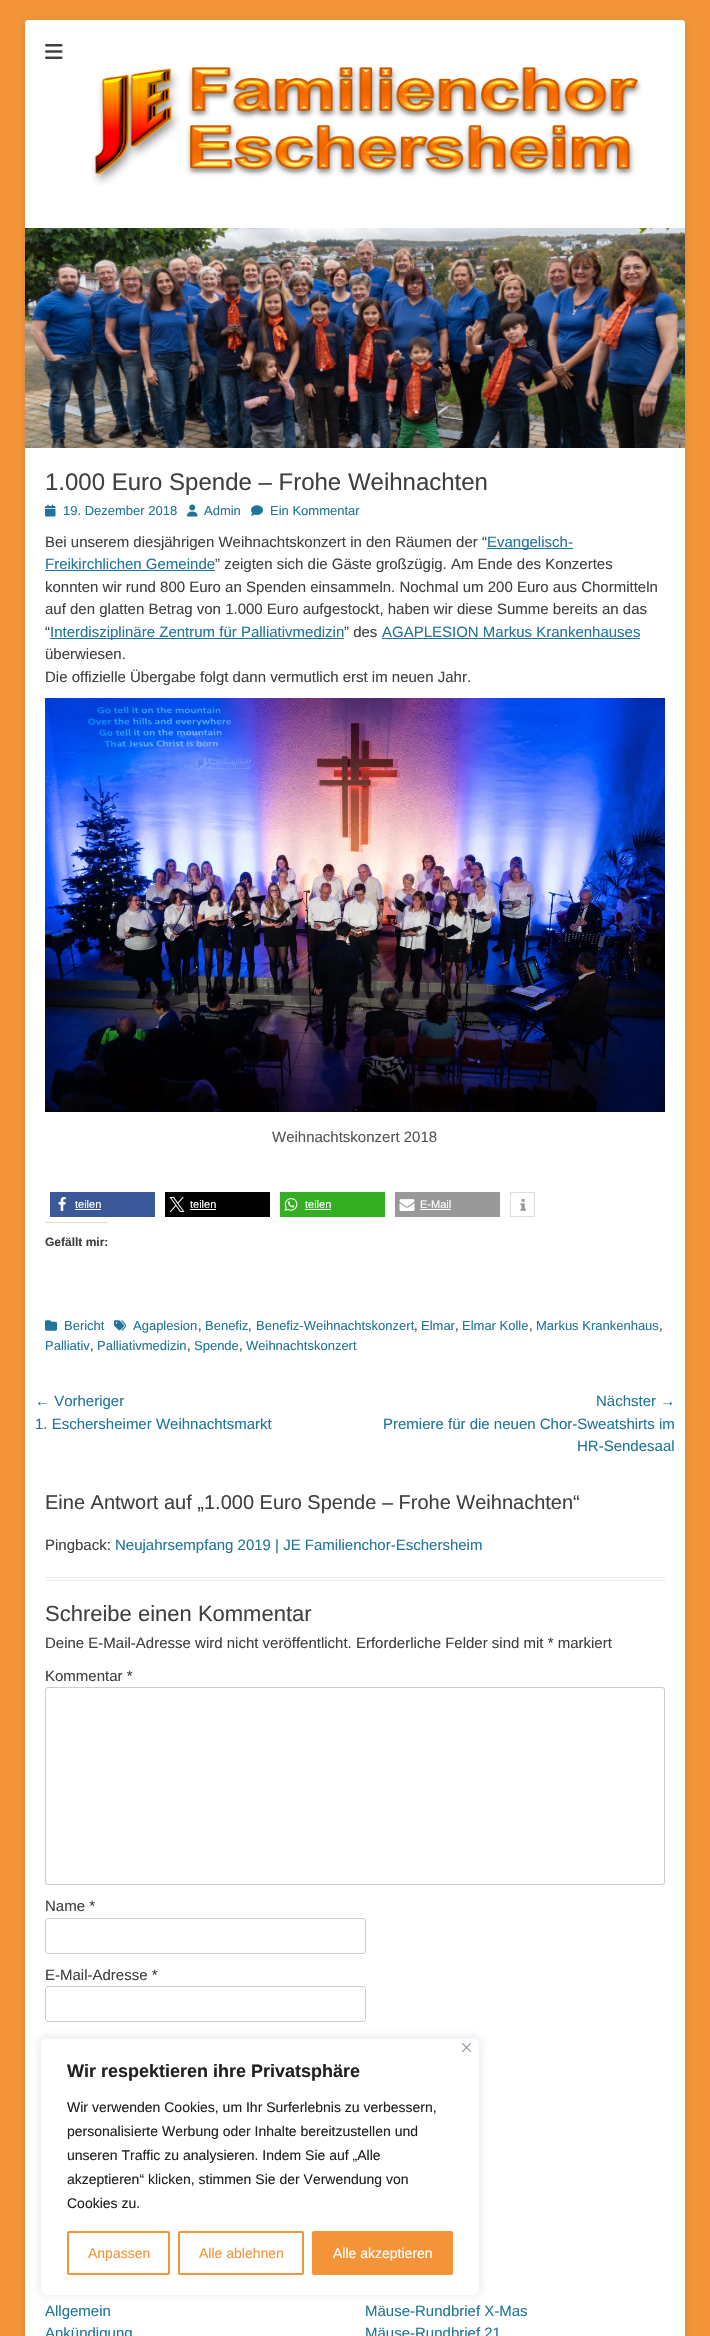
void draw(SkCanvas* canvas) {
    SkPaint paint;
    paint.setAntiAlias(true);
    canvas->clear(0xFFF29437);
    paint.setColor(0x4D646464);
    paint.setMaskFilter(SkMaskFilter::MakeBlur(kNormal_SkBlurStyle, 3));
    canvas->drawRoundRect(SkRect::MakeXYWH(25, 22, 660, 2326), 3, 3, paint);
    paint.setMaskFilter(nullptr);
    paint.setColor(0xFFFFFFFF);
    canvas->drawRoundRect(SkRect::MakeXYWH(25, 20, 660, 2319), 3, 3, paint);
    canvas->drawImageRect(SkImages::DeferredFromEncodedData(SkData::MakeFromFileName("img1.png")), SkRect::MakeXYWH(45, 44, 18, 15), SkSamplingOptions());
    canvas->drawImageRect(SkImages::DeferredFromEncodedData(SkData::MakeFromFileName("img2.png")), SkRect::MakeXYWH(91, 67, 551, 118), SkSamplingOptions());
    canvas->drawImageRect(SkImages::DeferredFromEncodedData(SkData::MakeFromFileName("img3.png")), SkRect::MakeXYWH(25, 228, 660, 220), SkSamplingOptions());
    SkFont font1(fontMgr->matchFamilyStyle("Liberation Sans", SkFontStyle::Normal()), 24);
    font1.setSubpixel(true);
    paint.setColor(0xFF404040);
    canvas->drawString("1.000 Euro Spende – Frohe Weihnachten", 45, 490, font1, paint);
    canvas->drawImageRect(SkImages::DeferredFromEncodedData(SkData::MakeFromFileName("img4.png")), SkRect::MakeXYWH(45, 504, 11, 13), SkSamplingOptions());
    SkFont font2(fontMgr->matchFamilyStyle("Liberation Sans", SkFontStyle::Normal()), 13);
    font2.setSubpixel(true);
    paint.setColor(0xFF21759B);
    canvas->drawString("19. Dezember 2018", 63, 515, font2, paint);
    canvas->drawImageRect(SkImages::DeferredFromEncodedData(SkData::MakeFromFileName("img5.png")), SkRect::MakeXYWH(187, 504, 11, 13), SkSamplingOptions());
    canvas->drawString("Admin", 204, 515, font2, paint);
    canvas->drawImageRect(SkImages::DeferredFromEncodedData(SkData::MakeFromFileName("img6.png")), SkRect::MakeXYWH(251, 505, 12, 11), SkSamplingOptions());
    canvas->drawString("Ein Kommentar", 270, 515, font2, paint);
    SkFont font3(fontMgr->matchFamilyStyle("Liberation Sans", SkFontStyle::Normal()), 15);
    font3.setSubpixel(true);
    paint.setColor(0xFF404040);
    canvas->drawString("Bei unserem diesjährigen Weihnachtskonzert in den Räumen der “", 45, 547, font3, paint);
    paint.setColor(0xFF21759B);
    canvas->drawRect(SkRect::MakeXYWH(487, 548, 86, 1), paint);
    canvas->drawString("Evangelisch-", 487, 547, font3, paint);
    canvas->drawString("Freikirchlichen Gemeinde", 45, 569, font3, paint);
    canvas->drawRect(SkRect::MakeXYWH(45, 570, 170, 1), paint);
    paint.setColor(0xFF404040);
    canvas->drawString("” zeigten sich die Gäste großzügig. Am Ende des Konzertes", 215, 569, font3, paint);
    canvas->drawString("konnten wir rund 800 Euro an Spenden einsammeln. Nochmal um 200 Euro aus Chormitteln", 45, 592, font3, paint);
    canvas->drawString("auf den glatten Betrag von 1.000 Euro aufgestockt, haben wir diese Summe bereits an das", 45, 614, font3, paint);
    canvas->drawString("“", 45, 637, font3, paint);
    paint.setColor(0xFF21759B);
    canvas->drawRect(SkRect::MakeXYWH(50, 638, 294, 1), paint);
    canvas->drawString("Interdisziplinäre Zentrum für Palliativmedizin", 50, 637, font3, paint);
    paint.setColor(0xFF404040);
    canvas->drawString("” des", 344, 637, font3, paint);
    paint.setColor(0xFF21759B);
    canvas->drawString("AGAPLESION Markus Krankenhauses", 382, 637, font3, paint);
    canvas->drawRect(SkRect::MakeXYWH(382, 638, 258, 1), paint);
    paint.setColor(0xFF404040);
    canvas->drawString("überwiesen.", 45, 659, font3, paint);
    canvas->drawString("Die offizielle Übergabe folgt dann vermutlich erst im neuen Jahr.", 45, 682, font3, paint);
    canvas->drawImageRect(SkImages::DeferredFromEncodedData(SkData::MakeFromFileName("img7.png")), SkRect::MakeXYWH(45, 698, 620, 414), SkSamplingOptions());
    paint.setColor(0xFF555555);
    canvas->drawString("Weihnachtskonzert 2018", 272, 1142, font3, paint);
    paint.setColor(0xFF3B5998);
    canvas->drawRect(SkRect::MakeXYWH(50, 1192, 105, 25), paint);
    canvas->drawImageRect(SkImages::DeferredFromEncodedData(SkData::MakeFromFileName("img8.png")), SkRect::MakeXYWH(58, 1197, 8, 14), SkSamplingOptions());
    SkFont font4(fontMgr->matchFamilyStyle("Liberation Sans", SkFontStyle::Normal()), 11);
    font4.setSubpixel(true);
    paint.setColor(0xFFFFFFFF);
    canvas->drawString("teilen", 75, 1208, font4, paint);
    canvas->drawRect(SkRect::MakeXYWH(75, 1209, 26, 1), paint);
    paint.setColor(0xFF000000);
    canvas->drawRect(SkRect::MakeXYWH(165, 1192, 105, 25), paint);
    canvas->drawImageRect(SkImages::DeferredFromEncodedData(SkData::MakeFromFileName("img9.png")), SkRect::MakeXYWH(169, 1197, 16, 15), SkSamplingOptions());
    paint.setColor(0xFFFFFFFF);
    canvas->drawString("teilen", 190, 1208, font4, paint);
    canvas->drawRect(SkRect::MakeXYWH(190, 1209, 26, 1), paint);
    paint.setColor(0xFF34AF23);
    canvas->drawRect(SkRect::MakeXYWH(280, 1192, 105, 25), paint);
    canvas->drawImageRect(SkImages::DeferredFromEncodedData(SkData::MakeFromFileName("img10.png")), SkRect::MakeXYWH(284, 1198, 14, 13), SkSamplingOptions());
    paint.setColor(0xFFFFFFFF);
    canvas->drawString("teilen", 305, 1208, font4, paint);
    canvas->drawRect(SkRect::MakeXYWH(305, 1209, 26, 1), paint);
    paint.setColor(0xFF999999);
    canvas->drawRect(SkRect::MakeXYWH(395, 1192, 105, 25), paint);
    canvas->drawImageRect(SkImages::DeferredFromEncodedData(SkData::MakeFromFileName("img11.png")), SkRect::MakeXYWH(399, 1199, 16, 12), SkSamplingOptions());
    paint.setColor(0xFFFFFFFF);
    canvas->drawString("E-Mail", 420, 1208, font4, paint);
    canvas->drawRect(SkRect::MakeXYWH(420, 1209, 31, 1), paint);
    paint.setStyle(SkPaint::kStroke_Style);
    paint.setStrokeWidth(1);
    paint.setColor(0xFFDDDDDD);
    canvas->drawRect(SkRect::MakeXYWH(510.5f, 1192.5f, 24, 24), paint);
    canvas->drawImageRect(SkImages::DeferredFromEncodedData(SkData::MakeFromFileName("img12.png")), SkRect::MakeXYWH(520, 1199, 6, 12), SkSamplingOptions());
    paint.setStyle(SkPaint::kFill_Style);
    paint.setColor(0xFFDCDCDE);
    canvas->drawRect(SkRect::MakeXYWH(45, 1222, 63, 1), paint);
    SkFont font5(fontMgr->matchFamilyStyle("Liberation Sans", SkFontStyle::Bold()), 12);
    font5.setSubpixel(true);
    paint.setColor(0xFF404040);
    canvas->drawString("Gefällt mir:", 45, 1246, font5, paint);
    canvas->drawImageRect(SkImages::DeferredFromEncodedData(SkData::MakeFromFileName("img13.png")), SkRect::MakeXYWH(114, 1320, 12, 11), SkSamplingOptions());
    paint.setColor(0xFF21759B);
    canvas->drawString("Agaplesion", 133, 1330, font2, paint);
    paint.setColor(0xFF404040);
    canvas->drawString(",", 198, 1330, font2, paint);
    paint.setColor(0xFF21759B);
    canvas->drawString("Benefiz", 205, 1330, font2, paint);
    paint.setColor(0xFF404040);
    canvas->drawString(",", 248, 1330, font2, paint);
    paint.setColor(0xFF21759B);
    canvas->drawString("Benefiz-Weihnachtskonzert", 256, 1330, font2, paint);
    paint.setColor(0xFF404040);
    canvas->drawString(",", 414, 1330, font2, paint);
    paint.setColor(0xFF21759B);
    canvas->drawString("Elmar", 421, 1330, font2, paint);
    paint.setColor(0xFF404040);
    canvas->drawString(",", 455, 1330, font2, paint);
    paint.setColor(0xFF21759B);
    canvas->drawString("Elmar Kolle", 462, 1330, font2, paint);
    paint.setColor(0xFF404040);
    canvas->drawString(",", 529, 1330, font2, paint);
    paint.setColor(0xFF21759B);
    canvas->drawString("Markus Krankenhaus", 536, 1330, font2, paint);
    paint.setColor(0xFF404040);
    canvas->drawString(",", 659, 1330, font2, paint);
    paint.setColor(0xFF21759B);
    canvas->drawString("Palliativ", 45, 1350, font2, paint);
    paint.setColor(0xFF404040);
    canvas->drawString(",", 90, 1350, font2, paint);
    paint.setColor(0xFF21759B);
    canvas->drawString("Palliativmedizin", 97, 1350, font2, paint);
    paint.setColor(0xFF404040);
    canvas->drawString(",", 187, 1350, font2, paint);
    paint.setColor(0xFF21759B);
    canvas->drawString("Spende", 194, 1350, font2, paint);
    paint.setColor(0xFF404040);
    canvas->drawString(",", 239, 1350, font2, paint);
    paint.setColor(0xFF21759B);
    canvas->drawString("Weihnachtskonzert", 246, 1350, font2, paint);
    canvas->drawImageRect(SkImages::DeferredFromEncodedData(SkData::MakeFromFileName("img14.png")), SkRect::MakeXYWH(45, 1320, 12, 11), SkSamplingOptions());
    canvas->drawString("Bericht", 64, 1330, font2, paint);
    canvas->drawString("← Vorheriger", 35, 1406, font3, paint);
    canvas->drawString("1. Eschersheimer Weihnachtsmarkt", 35, 1429, font3, paint);
    canvas->drawString("Nächster →", 596, 1406, font3, paint);
    canvas->drawString("Premiere für die neuen Chor-Sweatshirts im", 383, 1429, font3, paint);
    canvas->drawString("HR-Sendesaal", 577, 1451, font3, paint);
    SkFont font6(fontMgr->matchFamilyStyle("Liberation Sans", SkFontStyle::Normal()), 20);
    font6.setSubpixel(true);
    paint.setColor(0xFF404040);
    canvas->drawString("Eine Antwort auf „1.000 Euro Spende – Frohe Weihnachten“", 45, 1509, font6, paint);
    paint.setColor(0xFFEEEEEE);
    canvas->drawRect(SkRect::MakeXYWH(45, 1577, 620, 1), paint);
    canvas->drawRect(SkRect::MakeXYWH(45, 1580, 620, 1), paint);
    paint.setColor(0xFF404040);
    canvas->drawString("Pingback:", 45, 1550, font3, paint);
    paint.setColor(0xFF21759B);
    canvas->drawString("Neujahrsempfang 2019 | JE Familienchor-Eschersheim", 115, 1550, font3, paint);
    SkFont font7(fontMgr->matchFamilyStyle("Liberation Sans", SkFontStyle::Normal()), 22);
    font7.setSubpixel(true);
    paint.setColor(0xFF404040);
    canvas->drawString("Schreibe einen Kommentar", 45, 1621, font7, paint);
    canvas->drawString("Deine E-Mail-Adresse wird nicht veröffentlicht. Erforderliche Felder sind mit * markiert", 45, 1648, font3, paint);
    canvas->drawString("Kommentar *", 45, 1681, font3, paint);
    paint.setStyle(SkPaint::kStroke_Style);
    paint.setColor(0xFFCCCCCC);
    canvas->drawRoundRect(SkRect::MakeXYWH(45.5f, 1687.5f, 619, 197), 2.5f, 2.5f, paint);
    paint.setStyle(SkPaint::kFill_Style);
    paint.setColor(0xFF404040);
    canvas->drawString("Name *", 45, 1911, font3, paint);
    paint.setStyle(SkPaint::kStroke_Style);
    paint.setColor(0xFFCCCCCC);
    canvas->drawRoundRect(SkRect::MakeXYWH(45.5f, 1918.5f, 320, 35), 2.5f, 2.5f, paint);
    paint.setStyle(SkPaint::kFill_Style);
    paint.setColor(0xFF404040);
    canvas->drawString("E-Mail-Adresse *", 45, 1980, font3, paint);
    paint.setStyle(SkPaint::kStroke_Style);
    paint.setColor(0xFFCCCCCC);
    canvas->drawRoundRect(SkRect::MakeXYWH(45.5f, 1986.5f, 320, 35), 2.5f, 2.5f, paint);
    paint.setStyle(SkPaint::kFill_Style);
    paint.setColor(0xFF21759B);
    canvas->drawString("Allgemein", 45, 2316, font3, paint);
    canvas->drawString("Ankündigung", 45, 2338, font3, paint);
    canvas->drawString("Mäuse-Rundbrief X-Mas", 365, 2316, font3, paint);
    canvas->drawString("Mäuse-Rundbrief 21", 365, 2338, font3, paint);
    paint.setColor(0x4DACABAB);
    paint.setMaskFilter(SkMaskFilter::MakeBlur(kNormal_SkBlurStyle, 5));
    canvas->drawRoundRect(SkRect::MakeXYWH(40, 2037, 440, 258), 6, 6, paint);
    paint.setMaskFilter(nullptr);
    paint.setColor(0xFFFFFFFF);
    canvas->drawRoundRect(SkRect::MakeXYWH(40.5f, 2038.5f, 439, 257), 5.5f, 5.5f, paint);
    paint.setStyle(SkPaint::kStroke_Style);
    paint.setColor(0xFFF4F4F4);
    canvas->drawRoundRect(SkRect::MakeXYWH(40.5f, 2038.5f, 439, 257), 5.5f, 5.5f, paint);
    canvas->drawImageRect(SkImages::DeferredFromEncodedData(SkData::MakeFromFileName("img15.png")), SkRect::MakeXYWH(462, 2043, 9, 9), SkSamplingOptions());
    SkFont font8(fontMgr->matchFamilyStyle("Liberation Sans", SkFontStyle::Bold()), 18);
    font8.setSubpixel(true);
    paint.setStyle(SkPaint::kFill_Style);
    paint.setColor(0xFF212121);
    canvas->drawString("Wir respektieren ihre Privatsphäre", 67, 2077, font8, paint);
    SkFont font9(fontMgr->matchFamilyStyle("Liberation Sans", SkFontStyle::Normal()), 14);
    font9.setSubpixel(true);
    canvas->drawString("Wir verwenden Cookies, um Ihr Surferlebnis zu verbessern,", 67, 2112, font9, paint);
    canvas->drawString("personalisierte Werbung oder Inhalte bereitzustellen und", 67, 2136, font9, paint);
    canvas->drawString("unseren Traffic zu analysieren. Indem Sie auf „Alle", 67, 2160, font9, paint);
    canvas->drawString("akzeptieren“ klicken, stimmen Sie der Verwendung von", 67, 2184, font9, paint);
    canvas->drawString("Cookies zu.", 67, 2208, font9, paint);
    paint.setStyle(SkPaint::kStroke_Style);
    paint.setStrokeWidth(2);
    paint.setColor(0xFFF29437);
    canvas->drawRoundRect(SkRect::MakeXYWH(68, 2232, 101, 42), 1, 1, paint);
    paint.setStyle(SkPaint::kFill_Style);
    canvas->drawString("Anpassen", 88, 2258, font9, paint);
    paint.setStyle(SkPaint::kStroke_Style);
    canvas->drawRoundRect(SkRect::MakeXYWH(179, 2232, 124, 42), 1, 1, paint);
    paint.setStyle(SkPaint::kFill_Style);
    canvas->drawString("Alle ablehnen", 199, 2258, font9, paint);
    canvas->drawRoundRect(SkRect::MakeXYWH(313, 2232, 139, 42), 1, 1, paint);
    paint.setStyle(SkPaint::kStroke_Style);
    canvas->drawRoundRect(SkRect::MakeXYWH(313, 2232, 139, 42), 1, 1, paint);
    paint.setStyle(SkPaint::kFill_Style);
    paint.setColor(0xFFFFFFFF);
    canvas->drawString("Alle akzeptieren", 333, 2258, font9, paint);
}
